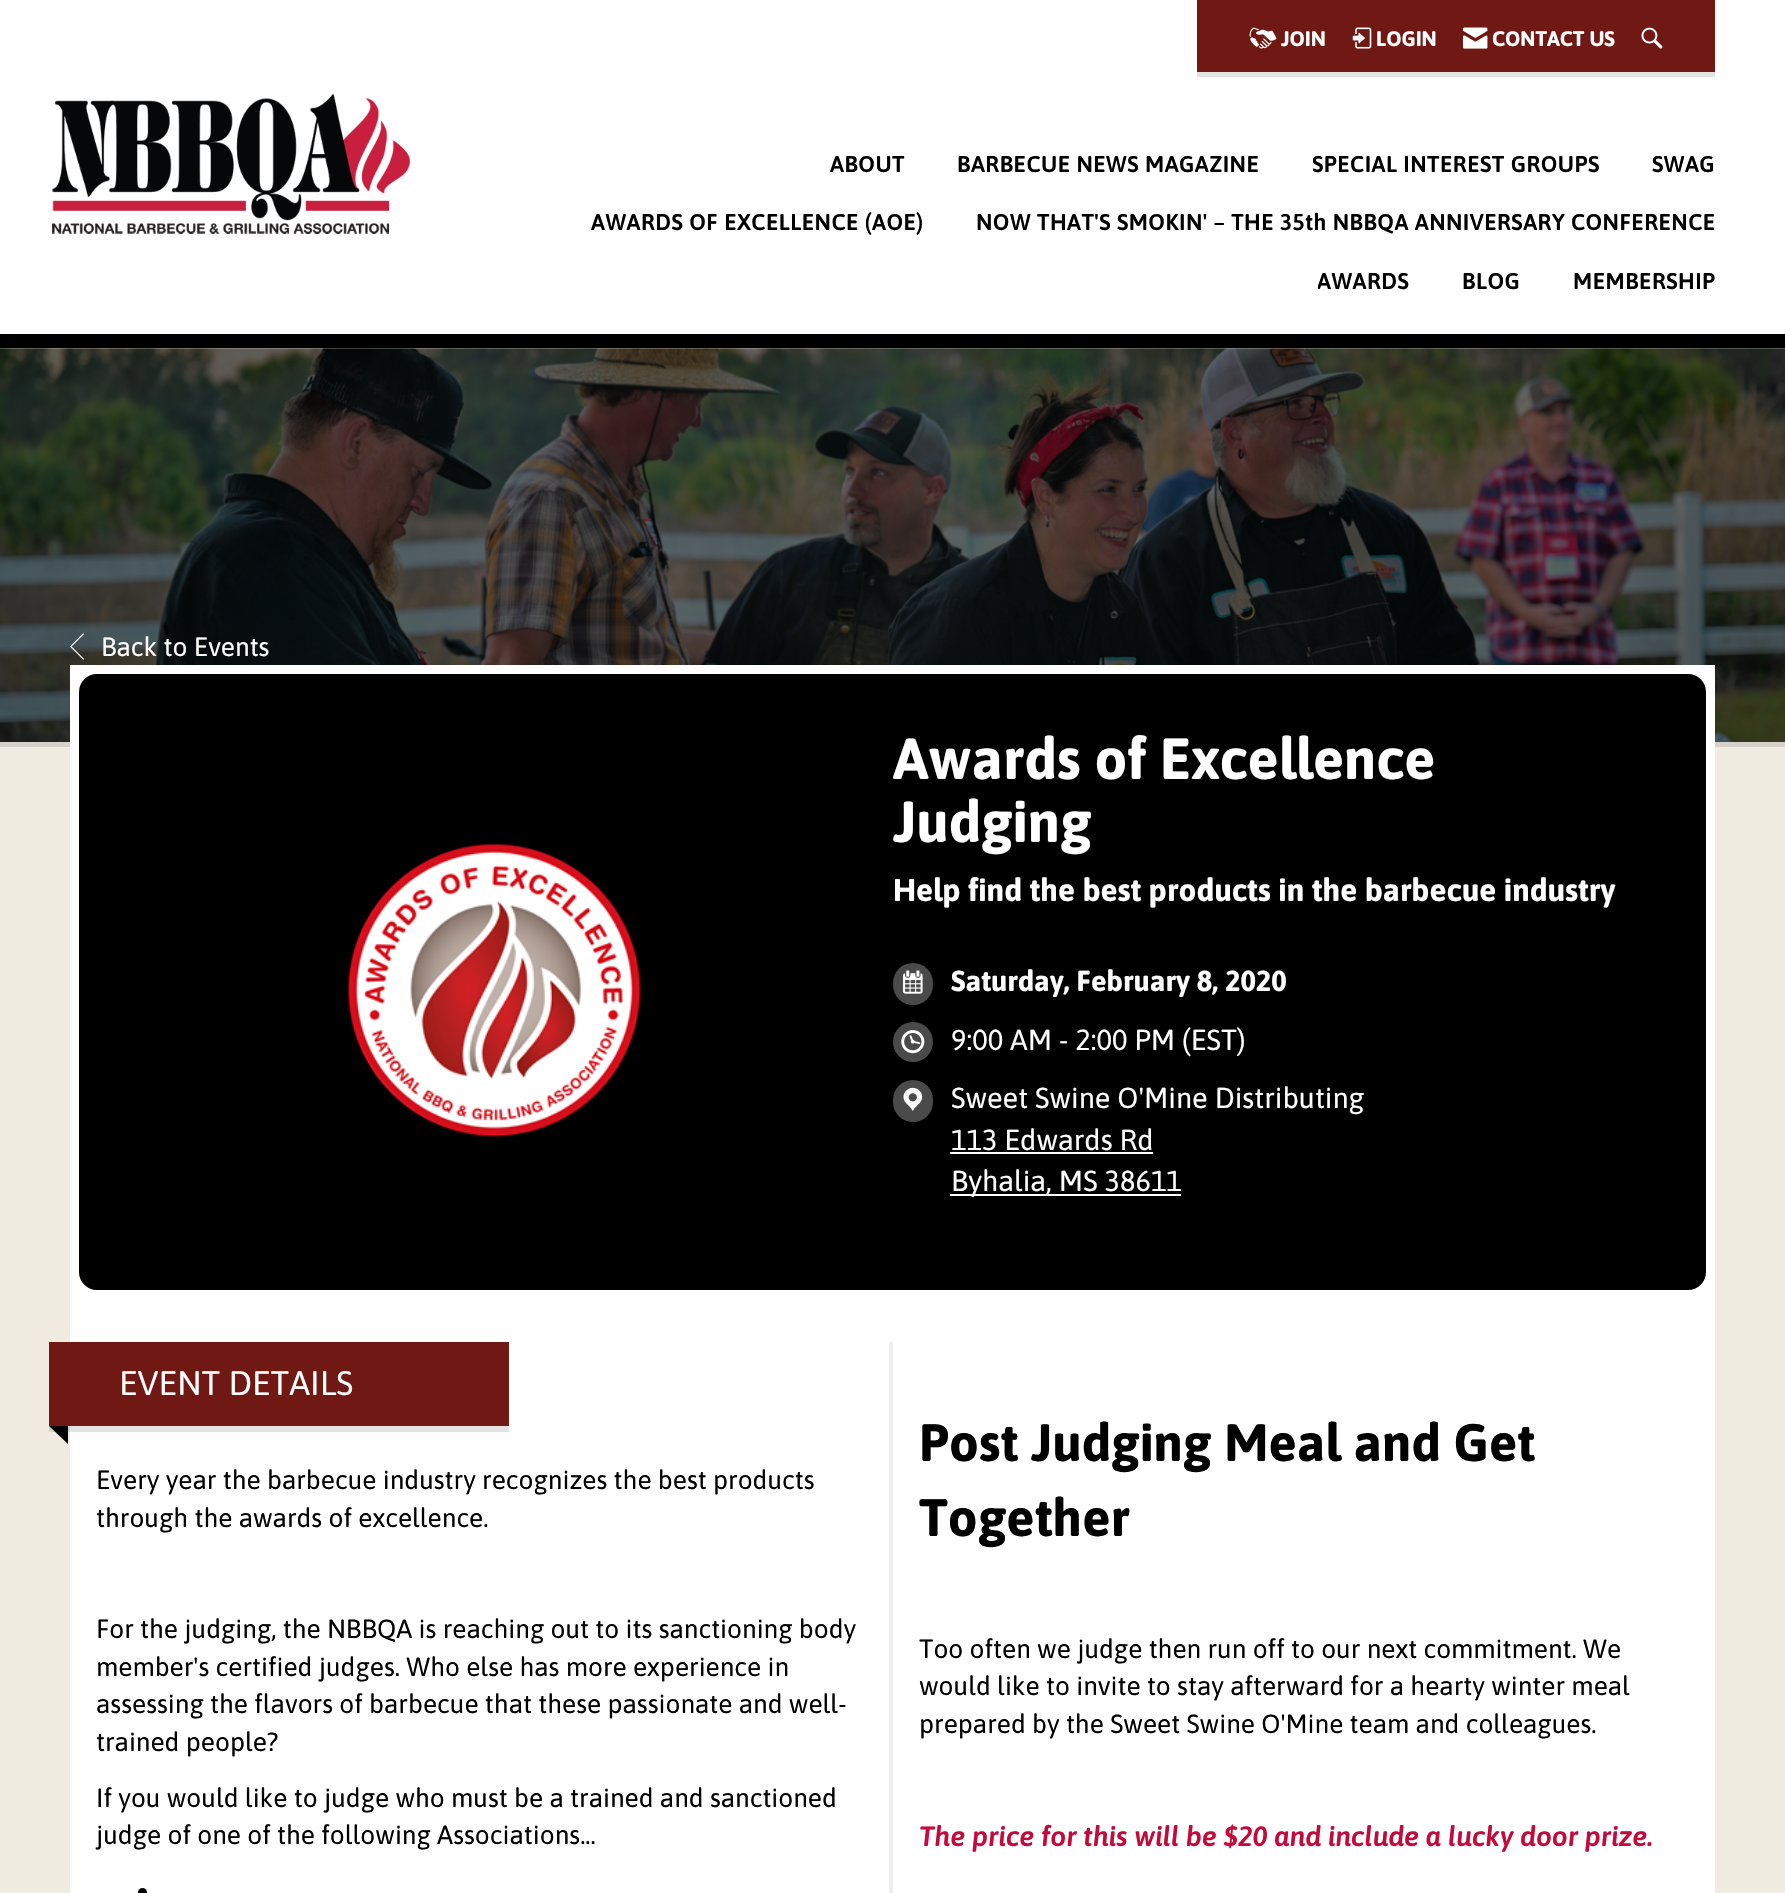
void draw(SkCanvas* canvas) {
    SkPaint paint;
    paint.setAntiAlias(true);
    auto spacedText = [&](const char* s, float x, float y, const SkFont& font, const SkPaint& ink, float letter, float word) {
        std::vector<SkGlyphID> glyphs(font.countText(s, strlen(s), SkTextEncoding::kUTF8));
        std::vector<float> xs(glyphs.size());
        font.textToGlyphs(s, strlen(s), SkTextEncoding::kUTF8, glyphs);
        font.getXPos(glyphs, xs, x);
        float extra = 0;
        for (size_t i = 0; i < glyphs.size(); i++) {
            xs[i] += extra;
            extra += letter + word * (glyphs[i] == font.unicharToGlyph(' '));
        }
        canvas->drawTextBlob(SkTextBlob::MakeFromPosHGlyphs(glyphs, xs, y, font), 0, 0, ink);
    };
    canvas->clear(0xFFF0ECE2);
    paint.setColor(0xFFD6D2C9);
    canvas->drawRect(SkRect::MakeXYWH(49, 1426, 21, 6), paint);
    paint.setColor(0xFFFFFFFF);
    canvas->drawRect(SkRect::MakeXYWH(0, 0, 1785, 334), paint);
    paint.setColor(0xFFE3E3E3);
    canvas->drawRect(SkRect::MakeXYWH(1197, 72, 518, 5), paint);
    paint.setColor(0xFF701914);
    canvas->drawRect(SkRect::MakeXYWH(1197, 0, 518, 72), paint);
    canvas->drawImageRect(SkImages::DeferredFromEncodedData(SkData::MakeFromFileName("img1.png")), SkRect::MakeXYWH(1249, 27, 28, 22), SkSamplingOptions());
    SkFont font1(fontMgr->matchFamilyStyle("Asap", SkFontStyle::Bold()), 21);
    font1.setSubpixel(true);
    paint.setColor(0xFFFFFFFF);
    canvas->drawString("JOIN", 1281, 46, font1, paint);
    canvas->drawImageRect(SkImages::DeferredFromEncodedData(SkData::MakeFromFileName("img2.png")), SkRect::MakeXYWH(1352, 27, 20, 22), SkSamplingOptions());
    canvas->drawString("LOGIN", 1376, 46, font1, paint);
    canvas->drawImageRect(SkImages::DeferredFromEncodedData(SkData::MakeFromFileName("img3.png")), SkRect::MakeXYWH(1463, 27, 25, 22), SkSamplingOptions());
    canvas->drawString("CONTACT US", 1492, 46, font1, paint);
    canvas->drawImageRect(SkImages::DeferredFromEncodedData(SkData::MakeFromFileName("img4.png")), SkRect::MakeXYWH(1641, 27, 22, 22), SkSamplingOptions());
    canvas->drawImageRect(SkImages::DeferredFromEncodedData(SkData::MakeFromFileName("img5.png")), SkRect::MakeXYWH(52, 94, 358, 140), SkSamplingOptions());
    SkFont font2(fontMgr->matchFamilyStyle("Asap", SkFontStyle(600, SkFontStyle::kNormal_Width, SkFontStyle::kUpright_Slant)), 22.75f);
    font2.setSubpixel(true);
    paint.setColor(0xFF000000);
    spacedText("ABOUT", 830, 172, font2, paint, 0.45f, 0);
    spacedText("BARBECUE NEWS MAGAZINE", 957, 172, font2, paint, 0.45f, 0);
    canvas->save();
    canvas->clipRect(SkRect::MakeXYWH(1313, 149, 287, 42));
    spacedText("SPECIAL INTEREST GROUPS", 1312, 172, font2, paint, 0.45f, 0);
    canvas->restore();
    spacedText("SWAG", 1652, 172, font2, paint, 0.45f, 0);
    spacedText("AWARDS OF EXCELLENCE (AOE)", 591, 230, font2, paint, 0.45f, 0);
    spacedText("NOW THAT'S SMOKIN' – THE 35th NBBQA ANNIVERSARY CONFERENCE", 976, 230, font2, paint, 0.45f, 0);
    canvas->save();
    canvas->clipRect(SkRect::MakeXYWH(1318, 266, 91, 42));
    spacedText("AWARDS", 1317, 289, font2, paint, 0.45f, 0);
    canvas->restore();
    spacedText("BLOG", 1462, 289, font2, paint, 0.45f, 0);
    spacedText("MEMBERSHIP", 1573, 289, font2, paint, 0.45f, 0);
    canvas->drawRect(SkRect::MakeXYWH(0, 334, 1785, 14), paint);
    paint.setColor(0xFFD6D2C9);
    canvas->drawRect(SkRect::MakeXYWH(0, 742, 1785, 5), paint);
    canvas->drawImageRect(SkImages::DeferredFromEncodedData(SkData::MakeFromFileName("img6.png")), SkRect::MakeXYWH(0, 348, 1785, 394), SkSamplingOptions());
    canvas->drawImageRect(SkImages::DeferredFromEncodedData(SkData::MakeFromFileName("img7.png")), SkRect::MakeXYWH(70, 633, 14, 27), SkSamplingOptions());
    SkFont font3(fontMgr->matchFamilyStyle("Asap", SkFontStyle::Normal()), 26.25f);
    font3.setSubpixel(true);
    paint.setColor(0xFFFFFFFF);
    canvas->drawString("Back to Events", 101, 656, font3, paint);
    canvas->drawRect(SkRect::MakeXYWH(70, 665, 1645, 1228), paint);
    paint.setColor(0xFFE3E3E3);
    canvas->drawRect(SkRect::MakeXYWH(70, 1426, 439, 6), paint);
    paint.setColor(0xFF000000);
    canvas->drawRoundRect(SkRect::MakeXYWH(79, 674, 1627, 616), 18, 18, paint);
    canvas->drawImageRect(SkImages::DeferredFromEncodedData(SkData::MakeFromFileName("img8.png")), SkRect::MakeXYWH(348, 843, 293, 294), SkSamplingOptions());
    SkFont font4(fontMgr->matchFamilyStyle("Asap", SkFontStyle::Bold()), 57.75f);
    font4.setSubpixel(true);
    paint.setColor(0xFFFFFFFF);
    canvas->drawString("Awards of Excellence", 893, 779, font4, paint);
    canvas->drawString("Judging", 893, 842, font4, paint);
    SkFont font5(fontMgr->matchFamilyStyle("Asap", SkFontStyle::Bold()), 31.5f);
    font5.setSubpixel(true);
    canvas->drawString("Help find the best products in the barbecue industry", 893, 901, font5, paint);
    paint.setColor(0xFF4A4A4A);
    canvas->drawRoundRect(SkRect::MakeXYWH(893, 963, 40, 42), 20, 20, paint);
    canvas->drawImageRect(SkImages::DeferredFromEncodedData(SkData::MakeFromFileName("img9.png")), SkRect::MakeXYWH(903, 970, 20, 24), SkSamplingOptions());
    SkFont font6(fontMgr->matchFamilyStyle("Asap", SkFontStyle::Bold()), 28.9f);
    font6.setSubpixel(true);
    paint.setColor(0xFFFFFFFF);
    canvas->drawString("Saturday, February 8, 2020", 951, 991, font6, paint);
    paint.setColor(0xFF4A4A4A);
    canvas->drawCircle(913, 1042, 20, paint);
    canvas->drawImageRect(SkImages::DeferredFromEncodedData(SkData::MakeFromFileName("img10.png")), SkRect::MakeXYWH(901, 1030, 24, 24), SkSamplingOptions());
    SkFont font7(fontMgr->matchFamilyStyle("Asap", SkFontStyle::Normal()), 28.9f);
    font7.setSubpixel(true);
    paint.setColor(0xFFFFFFFF);
    canvas->drawString("9:00 AM - 2:00 PM (EST)", 951, 1050, font7, paint);
    paint.setColor(0xFF4A4A4A);
    canvas->drawRoundRect(SkRect::MakeXYWH(893, 1080, 40, 42), 20, 20, paint);
    canvas->drawImageRect(SkImages::DeferredFromEncodedData(SkData::MakeFromFileName("img11.png")), SkRect::MakeXYWH(903, 1087, 20, 24), SkSamplingOptions());
    paint.setColor(0xFFFFFFFF);
    canvas->drawString("Sweet Swine O'Mine Distributing", 951, 1108, font7, paint);
    canvas->drawString("113 Edwards Rd", 951, 1150, font7, paint);
    canvas->drawRect(SkRect::MakeXYWH(950, 1152, 203, 2), paint);
    canvas->drawRect(SkRect::MakeXYWH(950, 1194, 231, 2), paint);
    canvas->drawString("Byhalia, MS 38611", 951, 1191, font7, paint);
    paint.setColor(0xFFEEEEEE);
    canvas->drawRect(SkRect::MakeXYWH(889, 1342, 4, 551), paint);
    paint.setColor(0xFF701914);
    canvas->drawRect(SkRect::MakeXYWH(49, 1342, 460, 84), paint);
    SkFont font8(fontMgr->matchFamilyStyle("Asap", SkFontStyle::Normal()), 34);
    font8.setSubpixel(true);
    paint.setColor(0xFFFFFFFF);
    canvas->drawString("EVENT DETAILS", 119, 1395, font8, paint);
    paint.setColor(0xFF000000);
    canvas->drawPath(SkPathBuilder().moveTo(49, 1426).lineTo(68, 1426).lineTo(68, 1444).close().detach(), paint);
    canvas->drawString("Every year the barbecue industry recognizes the best products", 96, 1489, font3, paint);
    canvas->drawString("through the awards of excellence.", 96, 1527, font3, paint);
    canvas->drawString("For the judging, the NBBQA is reaching out to its sanctioning body", 96, 1638, font3, paint);
    canvas->drawString("member's certified judges. Who else has more experience in", 96, 1676, font3, paint);
    canvas->drawString("assessing the flavors of barbecue that these passionate and well-", 96, 1713, font3, paint);
    canvas->drawString("trained people?", 96, 1751, font3, paint);
    canvas->drawString("If you would like to judge who must be a trained and sanctioned", 96, 1807, font3, paint);
    canvas->drawString("judge of one of the following Associations...", 96, 1844, font3, paint);
    canvas->drawCircle(142.5f, 1892.5f, 4.5f, paint);
    SkFont font9(fontMgr->matchFamilyStyle("Asap", SkFontStyle::Bold()), 52.5f);
    font9.setSubpixel(true);
    canvas->drawString("Post Judging Meal and Get", 919, 1461, font9, paint);
    canvas->drawString("Together", 919, 1536, font9, paint);
    canvas->drawString("Too often we judge then run off to our next commitment. We", 919, 1658, font3, paint);
    canvas->drawString("would like to invite to stay afterward for a hearty winter meal", 919, 1695, font3, paint);
    canvas->drawString("prepared by the Sweet Swine O'Mine team and colleagues.", 919, 1733, font3, paint);
    SkFont font10(fontMgr->matchFamilyStyle("Asap", SkFontStyle(600, SkFontStyle::kNormal_Width, SkFontStyle::kItalic_Slant)), 28);
    font10.setSubpixel(true);
    paint.setColor(0xFFC6093B);
    canvas->drawString("The price for this will be $20 and include a lucky door prize.", 919, 1846, font10, paint);
}
